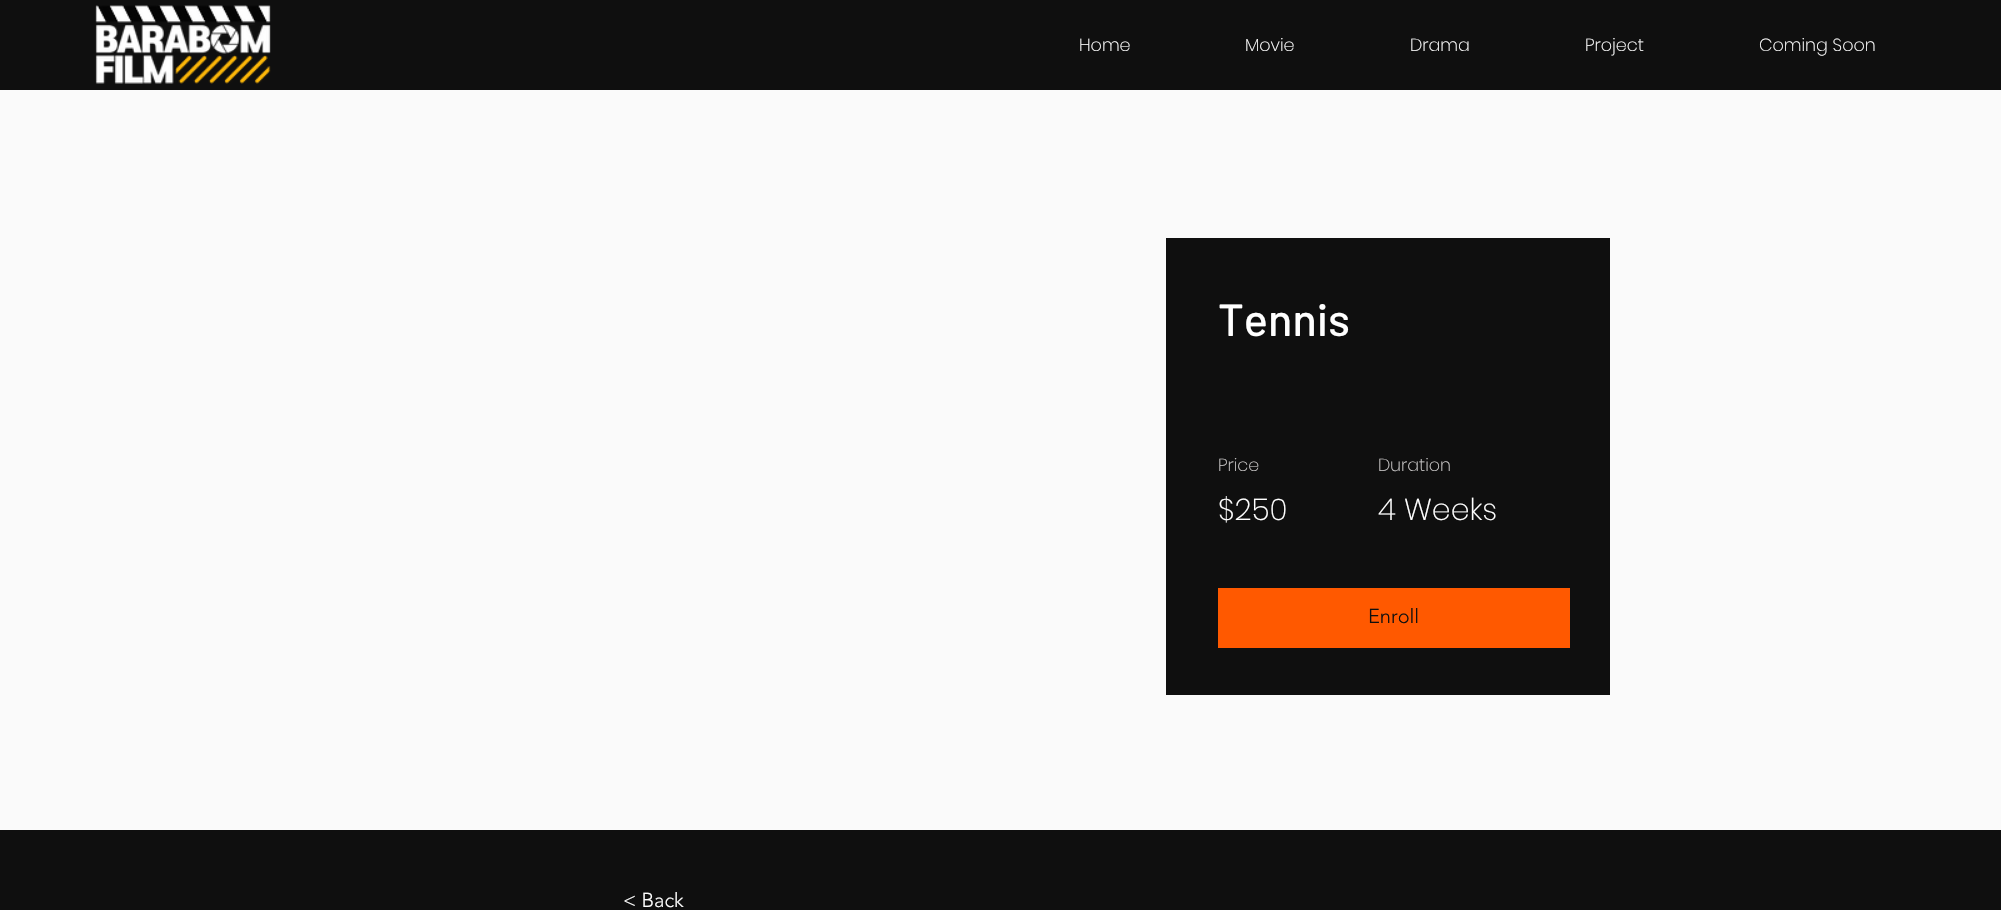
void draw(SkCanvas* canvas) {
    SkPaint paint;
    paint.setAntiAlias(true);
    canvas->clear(0xFF0F0F0F);
    canvas->drawImageRect(SkImages::DeferredFromEncodedData(SkData::MakeFromFileName("img1.png")), SkRect::MakeXYWH(95, 5, 176, 79), SkSamplingOptions());
    SkFont font1(fontMgr->matchFamilyStyle("Poppins", SkFontStyle(200, SkFontStyle::kNormal_Width, SkFontStyle::kUpright_Slant)), 17.5f);
    font1.setSubpixel(true);
    paint.setColor(0xFFFFFFFF);
    canvas->drawString("Home", 1079, 51, font1, paint);
    canvas->drawString("Movie", 1245, 51, font1, paint);
    canvas->drawString("Drama", 1410, 51, font1, paint);
    canvas->drawString("Project", 1585, 51, font1, paint);
    canvas->drawString("Coming Soon", 1759, 51, font1, paint);
    paint.setColor(0xFFFAFAFA);
    canvas->drawRect(SkRect::MakeXYWH(0, 90, 2001, 740), paint);
    paint.setColor(0xFF0F0F0F);
    canvas->drawRect(SkRect::MakeXYWH(1166, 238, 444, 457), paint);
    SkFont font2(fontMgr->matchFamilyStyle("Barlow", SkFontStyle(500, SkFontStyle::kNormal_Width, SkFontStyle::kUpright_Slant)), 45);
    font2.setSubpixel(true);
    paint.setColor(0xFFFFFFFF);
    canvas->drawString("Tennis", 1218, 336, font2, paint);
    paint.setColor(0xFFCCCACA);
    canvas->drawString("Price", 1218, 471, font1, paint);
    canvas->drawString("Duration", 1378, 471, font1, paint);
    SkFont font3(fontMgr->matchFamilyStyle("Poppins", SkFontStyle(200, SkFontStyle::kNormal_Width, SkFontStyle::kUpright_Slant)), 30);
    font3.setSubpixel(true);
    paint.setColor(0xFFFFFFFF);
    canvas->drawString("$250", 1218, 520, font3, paint);
    canvas->drawString("4 Weeks", 1378, 520, font3, paint);
    paint.setColor(0xFFFF5900);
    canvas->drawRect(SkRect::MakeXYWH(1218, 588, 352, 60), paint);
    SkFont font4(fontMgr->matchFamilyStyle("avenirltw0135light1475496", SkFontStyle(300, SkFontStyle::kNormal_Width, SkFontStyle::kUpright_Slant)), 20);
    font4.setSubpixel(true);
    paint.setColor(0xFF0F0F0F);
    canvas->drawString("Enroll", 1368, 623, font4, paint);
    paint.setColor(0xFFFFFFFF);
    canvas->drawString("< Back", 623, 907, font4, paint);
}
